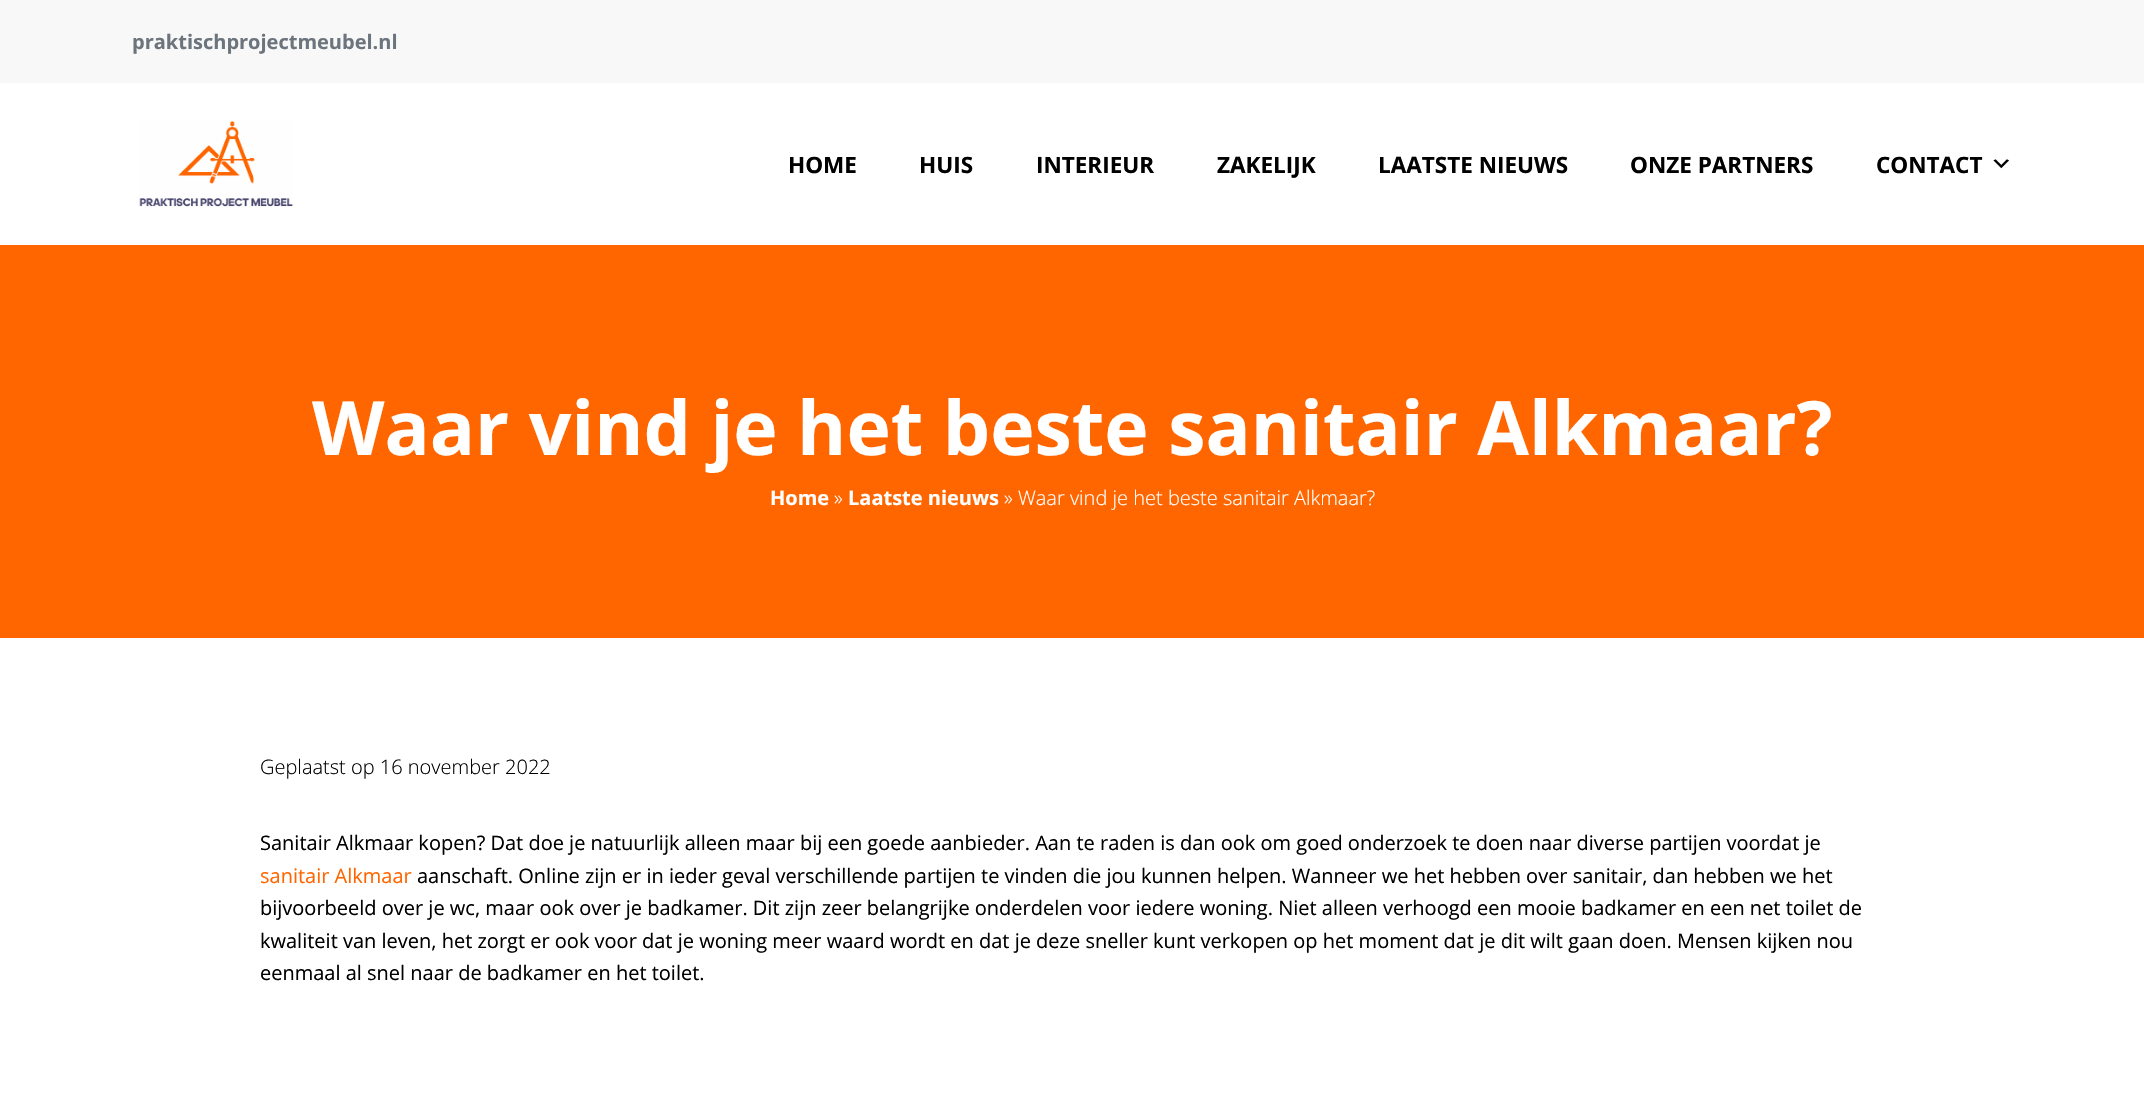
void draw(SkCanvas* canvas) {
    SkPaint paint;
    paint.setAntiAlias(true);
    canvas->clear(0xFFFFFFFF);
    paint.setColor(0xFFF8F8F8);
    canvas->drawRect(SkRect::MakeXYWH(0, 0, 2144, 83), paint);
    SkFont font1(fontMgr->matchFamilyStyle("Open Sans", SkFontStyle::Bold()), 20);
    font1.setSubpixel(true);
    paint.setColor(0xFF6C757D);
    canvas->drawString("praktischprojectmeubel.nl", 132, 49, font1, paint);
    canvas->drawImageRect(SkImages::DeferredFromEncodedData(SkData::MakeFromFileName("img1.png")), SkRect::MakeXYWH(139, 120, 154, 87), SkSamplingOptions());
    SkFont font2(fontMgr->matchFamilyStyle("Open Sans", SkFontStyle::Bold()), 22.5f);
    font2.setSubpixel(true);
    paint.setColor(0xFF000000);
    canvas->drawString("HOME", 788, 173, font2, paint);
    canvas->drawString("HUIS", 919, 173, font2, paint);
    canvas->drawString("INTERIEUR", 1036, 173, font2, paint);
    canvas->drawString("ZAKELIJK", 1217, 173, font2, paint);
    canvas->drawString("LAATSTE NIEUWS", 1378, 173, font2, paint);
    canvas->drawString("ONZE PARTNERS", 1630, 173, font2, paint);
    canvas->drawString("CONTACT", 1876, 173, font2, paint);
    canvas->drawImageRect(SkImages::DeferredFromEncodedData(SkData::MakeFromFileName("img2.png")), SkRect::MakeXYWH(1993, 159, 16, 10), SkSamplingOptions());
    paint.setColor(0xFFFF6600);
    canvas->drawRect(SkRect::MakeXYWH(0, 245, 2144, 393), paint);
    SkFont font3(fontMgr->matchFamilyStyle("Open Sans", SkFontStyle::Bold()), 75);
    font3.setSubpixel(true);
    paint.setColor(0xFFFFFFFF);
    canvas->drawString("Waar vind je het beste sanitair Alkmaar?", 312, 455, font3, paint);
    canvas->drawString("Home", 770, 505, font1, paint);
    SkFont font4(fontMgr->matchFamilyStyle("Open Sans", SkFontStyle(300, SkFontStyle::kNormal_Width, SkFontStyle::kUpright_Slant)), 20);
    font4.setSubpixel(true);
    canvas->drawString("»", 834, 505, font4, paint);
    canvas->drawString("Laatste nieuws", 848, 505, font1, paint);
    canvas->drawString("» Waar vind je het beste sanitair Alkmaar?", 1004, 505, font4, paint);
    paint.setColor(0xFF000000);
    canvas->drawString("Geplaatst op 16 november 2022", 260, 774, font4, paint);
    SkFont font5(fontMgr->matchFamilyStyle("Open Sans", SkFontStyle::Normal()), 20);
    font5.setSubpixel(true);
    canvas->drawString("Sanitair Alkmaar kopen? Dat doe je natuurlijk alleen maar bij een goede aanbieder. Aan te raden is dan ook om goed onderzoek te doen naar diverse partijen voordat je", 260, 850, font5, paint);
    paint.setColor(0xFFFF6600);
    canvas->drawString("sanitair Alkmaar", 260, 883, font5, paint);
    paint.setColor(0xFF000000);
    canvas->drawString("aanschaft. Online zijn er in ieder geval verschillende partijen te vinden die jou kunnen helpen. Wanneer we het hebben over sanitair, dan hebben we het", 417, 883, font5, paint);
    canvas->drawString("bijvoorbeeld over je wc, maar ook over je badkamer. Dit zijn zeer belangrijke onderdelen voor iedere woning. Niet alleen verhoogd een mooie badkamer en een net toilet de", 260, 915, font5, paint);
    canvas->drawString("kwaliteit van leven, het zorgt er ook voor dat je woning meer waard wordt en dat je deze sneller kunt verkopen op het moment dat je dit wilt gaan doen. Mensen kijken nou", 260, 948, font5, paint);
    canvas->drawString("eenmaal al snel naar de badkamer en het toilet.", 260, 980, font5, paint);
}
